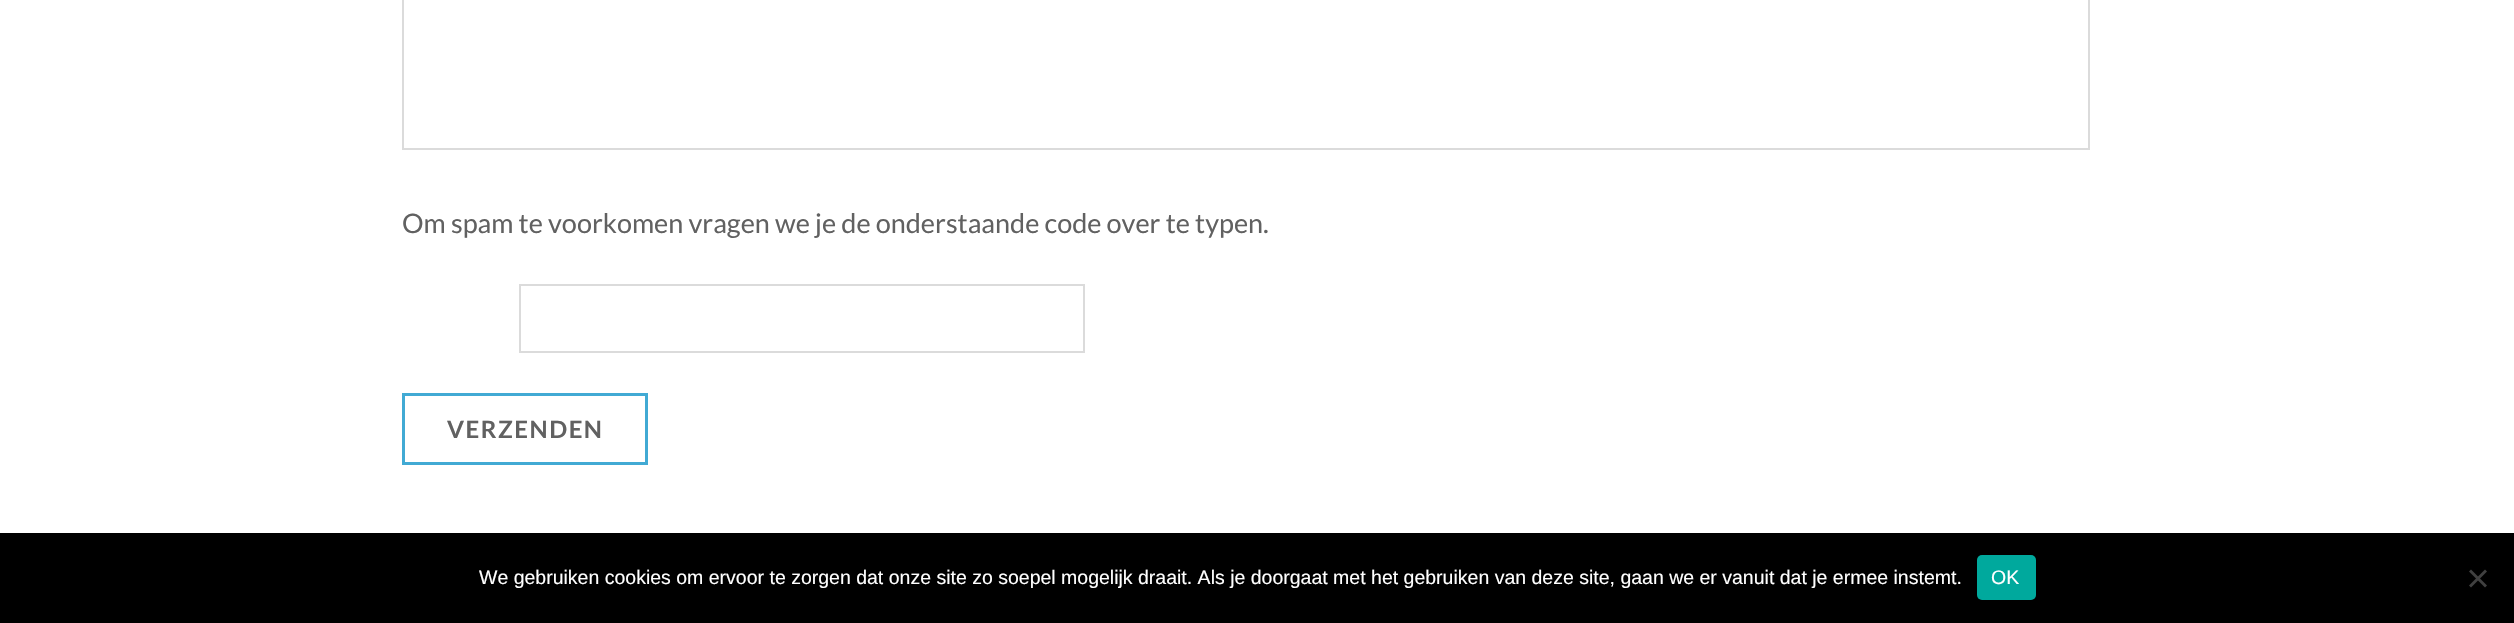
void draw(SkCanvas* canvas) {
    SkPaint paint;
    paint.setAntiAlias(true);
    auto spacedText = [&](const char* s, float x, float y, const SkFont& font, const SkPaint& ink, float letter, float word) {
        std::vector<SkGlyphID> glyphs(font.countText(s, strlen(s), SkTextEncoding::kUTF8));
        std::vector<float> xs(glyphs.size());
        font.textToGlyphs(s, strlen(s), SkTextEncoding::kUTF8, glyphs);
        font.getXPos(glyphs, xs, x);
        float extra = 0;
        for (size_t i = 0; i < glyphs.size(); i++) {
            xs[i] += extra;
            extra += letter + word * (glyphs[i] == font.unicharToGlyph(' '));
        }
        canvas->drawTextBlob(SkTextBlob::MakeFromPosHGlyphs(glyphs, xs, y, font), 0, 0, ink);
    };
    canvas->clear(0xFFFFFFFF);
    paint.setStyle(SkPaint::kStroke_Style);
    paint.setStrokeWidth(2);
    paint.setColor(0xFFDBDBDB);
    canvas->drawRect(SkRect::MakeXYWH(403, -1, 1686, 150), paint);
    SkFont font1(fontMgr->matchFamilyStyle("Lato", SkFontStyle::Normal()), 27);
    font1.setSubpixel(true);
    paint.setStyle(SkPaint::kFill_Style);
    paint.setColor(0xFF616161);
    canvas->drawString("Om spam te voorkomen vragen we je de onderstaande code over te typen.", 402, 233, font1, paint);
    paint.setStyle(SkPaint::kStroke_Style);
    paint.setColor(0xFFDBDBDB);
    canvas->drawRect(SkRect::MakeXYWH(520, 285, 564, 67), paint);
    paint.setStrokeWidth(3);
    paint.setColor(0xFF41AAD4);
    canvas->drawRect(SkRect::MakeXYWH(403.5f, 394.5f, 243, 69), paint);
    SkFont font2(fontMgr->matchFamilyStyle("Lato", SkFontStyle::Bold()), 24);
    font2.setSubpixel(true);
    paint.setStyle(SkPaint::kFill_Style);
    paint.setColor(0xFF616161);
    spacedText("VERZENDEN", 447, 438, font2, paint, 1.5f, 0);
    paint.setColor(0xFF000000);
    canvas->drawRect(SkRect::MakeXYWH(0, 533, 2514, 90), paint);
    SkFont font3(fontMgr->matchFamilyStyle("Liberation Sans", SkFontStyle::Normal()), 19.5f);
    font3.setSubpixel(true);
    paint.setColor(0xFFFFFFFF);
    canvas->drawString("We gebruiken cookies om ervoor te zorgen dat onze site zo soepel mogelijk draait. Als je doorgaat met het gebruiken van deze site, gaan we er vanuit dat je ermee instemt.", 479, 584, font3, paint);
    paint.setColor(0xFF00A99D);
    canvas->drawRoundRect(SkRect::MakeXYWH(1977, 555, 59, 45), 5, 5, paint);
    paint.setColor(0xFFFFFFFF);
    canvas->drawString("OK", 1991, 584, font3, paint);
    paint.setColor(0xFF404040);
    canvas->drawPath(SkPathBuilder().moveTo(2485, 569.5f).lineTo(2487, 571.5f).lineTo(2471, 587.5f).lineTo(2469, 585.5f).close().detach(), paint);
    canvas->drawPath(SkPathBuilder().moveTo(2469, 571.5f).lineTo(2471, 569.5f).lineTo(2487, 585.5f).lineTo(2485, 587.5f).close().detach(), paint);
}
